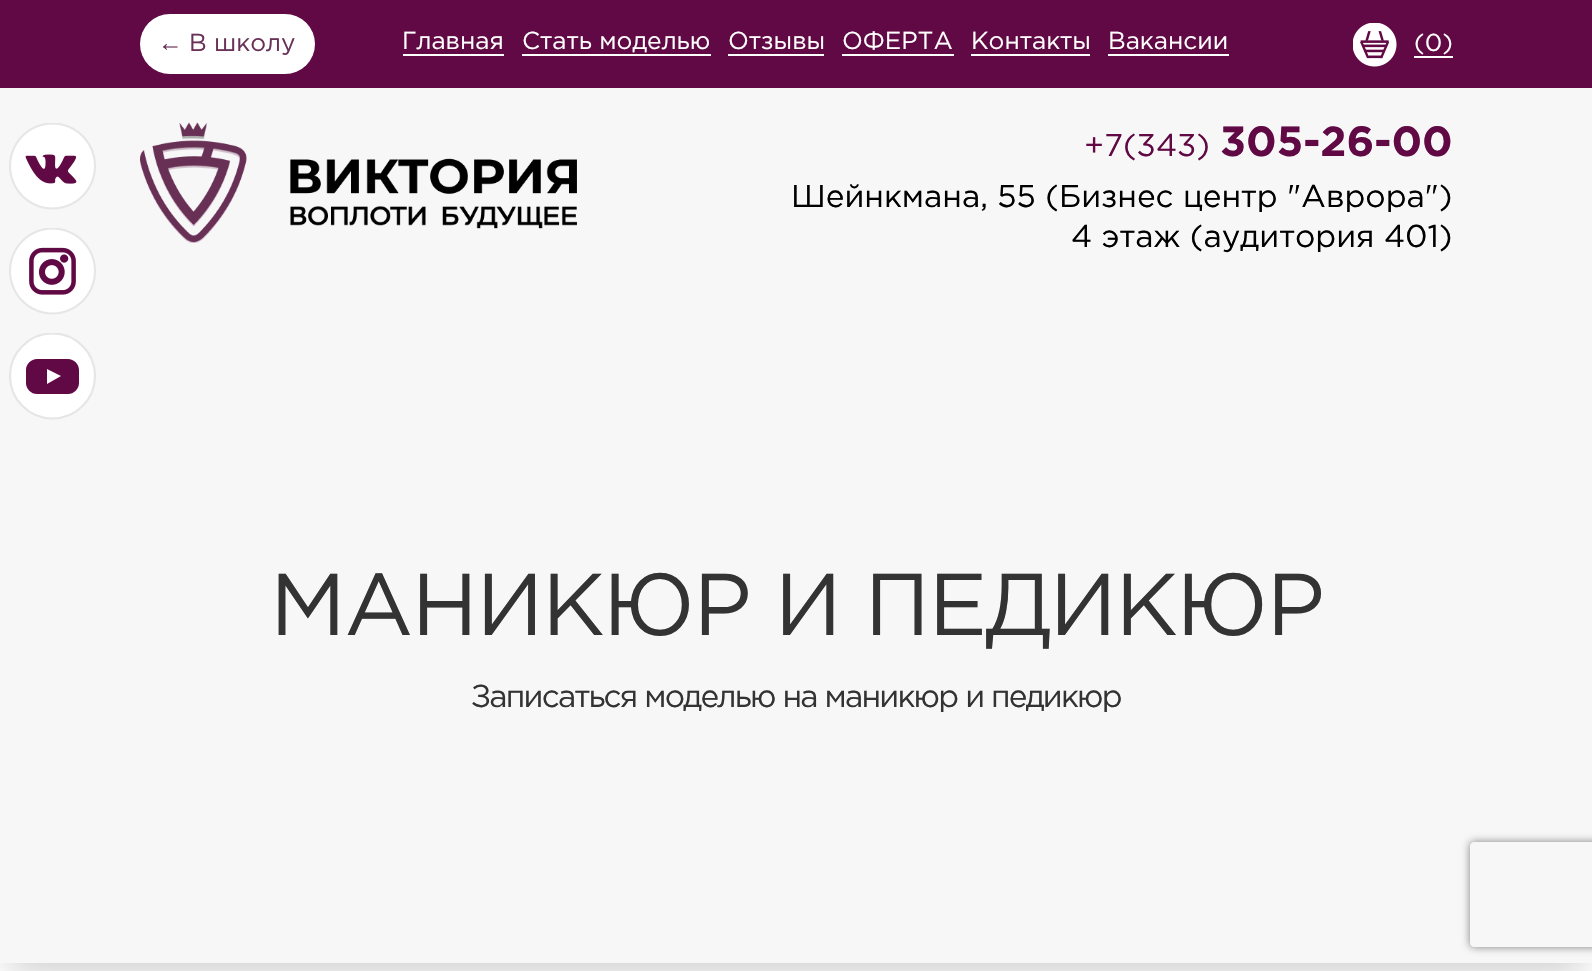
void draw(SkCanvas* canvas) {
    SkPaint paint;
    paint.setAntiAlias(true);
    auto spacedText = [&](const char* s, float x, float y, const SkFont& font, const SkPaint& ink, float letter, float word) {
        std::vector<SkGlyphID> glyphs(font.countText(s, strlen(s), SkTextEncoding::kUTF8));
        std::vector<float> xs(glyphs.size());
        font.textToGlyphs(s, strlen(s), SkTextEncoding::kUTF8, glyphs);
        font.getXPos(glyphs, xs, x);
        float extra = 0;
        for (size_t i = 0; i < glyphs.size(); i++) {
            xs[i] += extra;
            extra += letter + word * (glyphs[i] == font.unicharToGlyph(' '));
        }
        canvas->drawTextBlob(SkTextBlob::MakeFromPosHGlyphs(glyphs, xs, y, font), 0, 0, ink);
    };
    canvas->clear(0xFFFFFFFF);
    canvas->save();
    canvas->clipPath(SkPathBuilder(SkPathFillType::kEvenOdd).moveTo(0, 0).lineTo(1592, 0).lineTo(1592, 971).lineTo(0, 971).close().moveTo(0, 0).lineTo(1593, 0).lineTo(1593, 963).lineTo(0, 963).close().detach(), true);
    paint.setColor(0x33000000);
    paint.setMaskFilter(SkMaskFilter::MakeBlur(kNormal_SkBlurStyle, 17.5f));
    canvas->drawRect(SkRect::MakeXYWH(9, 26, 1575, 945), paint);
    paint.setMaskFilter(nullptr);
    canvas->restore();
    paint.setColor(0xFF610944);
    canvas->drawRect(SkRect::MakeXYWH(0, 0, 1592, 88), paint);
    paint.setColor(0xFFFFFFFF);
    canvas->drawRoundRect(SkRect::MakeXYWH(140, 14, 175, 60), 30, 30, paint);
    SkFont font1(fontMgr->matchFamilyStyle("Liberation Sans", SkFontStyle::Normal()), 24.5f);
    font1.setSubpixel(true);
    paint.setColor(0xFF693158);
    canvas->drawString("←", 158, 51, font1, paint);
    SkFont font2(fontMgr->matchFamilyStyle("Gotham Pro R", SkFontStyle::Normal()), 24.5f);
    font2.setSubpixel(true);
    canvas->drawString("В школу", 189, 51, font2, paint);
    paint.setColor(0xFFFFFFFF);
    canvas->drawString("Главная", 402, 49, font2, paint);
    canvas->drawRect(SkRect::MakeXYWH(403, 54, 101, 2), paint);
    canvas->drawString("Стать моделью", 522, 49, font2, paint);
    canvas->drawRect(SkRect::MakeXYWH(522, 54, 189, 2), paint);
    canvas->drawString("Отзывы", 728, 49, font2, paint);
    canvas->drawRect(SkRect::MakeXYWH(728, 54, 96, 2), paint);
    canvas->drawString("ОФЕРТА", 842, 49, font2, paint);
    canvas->drawRect(SkRect::MakeXYWH(842, 54, 112, 2), paint);
    canvas->drawString("Контакты", 971, 49, font2, paint);
    canvas->drawRect(SkRect::MakeXYWH(971, 54, 119, 2), paint);
    canvas->drawString("Вакансии", 1108, 49, font2, paint);
    canvas->drawRect(SkRect::MakeXYWH(1108, 54, 121, 2), paint);
    canvas->drawImageRect(SkImages::DeferredFromEncodedData(SkData::MakeFromFileName("img1.png")), SkRect::MakeXYWH(1353, 23, 44, 44), SkSamplingOptions());
    canvas->drawString("(0)", 1414, 51, font2, paint);
    canvas->drawRect(SkRect::MakeXYWH(1414, 56, 39, 2), paint);
    paint.setColor(0x4DE6E6E6);
    canvas->drawRect(SkRect::MakeXYWH(0, 88, 1592, 875), paint);
    canvas->drawImageRect(SkImages::DeferredFromEncodedData(SkData::MakeFromFileName("img2.png")), SkRect::MakeXYWH(9, 123, 87, 87), SkSamplingOptions());
    canvas->drawImageRect(SkImages::DeferredFromEncodedData(SkData::MakeFromFileName("img3.png")), SkRect::MakeXYWH(9, 228, 87, 87), SkSamplingOptions());
    paint.setColor(0xFFFFFFFF);
    canvas->drawCircle(52.5f, 376, 42.5f, paint);
    canvas->save();
    canvas->clipPath(SkPathBuilder().moveTo(14, 333).lineTo(91, 333).cubicTo(94, 333, 96, 335, 96, 338).lineTo(96, 415).cubicTo(96, 418, 94, 420, 91, 420).lineTo(14, 420).cubicTo(11, 420, 9, 418, 9, 415).lineTo(9, 338).cubicTo(9, 335, 11, 333, 14, 333).close().detach(), true);
    paint.setStyle(SkPaint::kStroke_Style);
    paint.setStrokeWidth(2.1f);
    paint.setColor(0xFFE6E6E6);
    canvas->drawCircle(52.5f, 376, 42.5f, paint);
    canvas->restore();
    paint.setStyle(SkPaint::kFill_Style);
    paint.setColor(0xFF610944);
    canvas->drawPath(SkPathBuilder(SkPathFillType::kEvenOdd).moveTo(37, 359).lineTo(68, 359).cubicTo(74, 359, 79, 364, 79, 370).lineTo(79, 383).cubicTo(79, 389, 74, 394, 68, 394).lineTo(37, 394).cubicTo(31, 394, 26, 389, 26, 383).lineTo(26, 370).cubicTo(26, 364, 31, 359, 37, 359).close().moveTo(47, 369).lineTo(61, 376).lineTo(47, 384).close().detach(), paint);
    canvas->drawImageRect(SkImages::DeferredFromEncodedData(SkData::MakeFromFileName("img4.png")), SkRect::MakeXYWH(140, 122, 438, 121), SkSamplingOptions());
    SkFont font3(fontMgr->matchFamilyStyle("Gotham Pro R", SkFontStyle::Normal()), 31.5f);
    font3.setSubpixel(true);
    canvas->drawString("+7(343)", 1084, 156, font3, paint);
    SkFont font4(fontMgr->matchFamilyStyle("Gotham Pro R", SkFontStyle::Bold()), 42);
    font4.setSubpixel(true);
    canvas->drawString("305-26-00", 1220, 156, font4, paint);
    paint.setColor(0xFF000000);
    canvas->drawString("Шейнкмана, 55 (Бизнес центр \"Аврора\")", 791, 207, font3, paint);
    canvas->drawString("4 этаж (аудитория 401)", 1071, 247, font3, paint);
    SkFont font5(fontMgr->matchFamilyStyle("Gotham Pro R", SkFontStyle::Normal()), 87.5f);
    font5.setSubpixel(true);
    paint.setColor(0xFF333333);
    spacedText("МАНИКЮР И ПЕДИКЮР", 270, 635, font5, paint, -1.75f, 0);
    spacedText("Записаться моделью на маникюр и педикюр", 471, 707, font3, paint, -1.75f, 0);
    canvas->save();
    canvas->clipPath(SkPathBuilder(SkPathFillType::kEvenOdd).moveTo(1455, 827).lineTo(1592, 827).lineTo(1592, 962).lineTo(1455, 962).close().moveTo(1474, 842).lineTo(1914, 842).cubicTo(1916, 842, 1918, 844, 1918, 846).lineTo(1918, 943).cubicTo(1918, 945, 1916, 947, 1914, 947).lineTo(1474, 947).cubicTo(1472, 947, 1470, 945, 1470, 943).lineTo(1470, 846).cubicTo(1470, 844, 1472, 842, 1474, 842).close().detach(), true);
    paint.setColor(0xFF808080);
    paint.setMaskFilter(SkMaskFilter::MakeBlur(kNormal_SkBlurStyle, 4.5f));
    canvas->drawRoundRect(SkRect::MakeXYWH(1470, 842, 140, 105), 4, 4, paint);
    paint.setMaskFilter(nullptr);
    canvas->restore();
}
